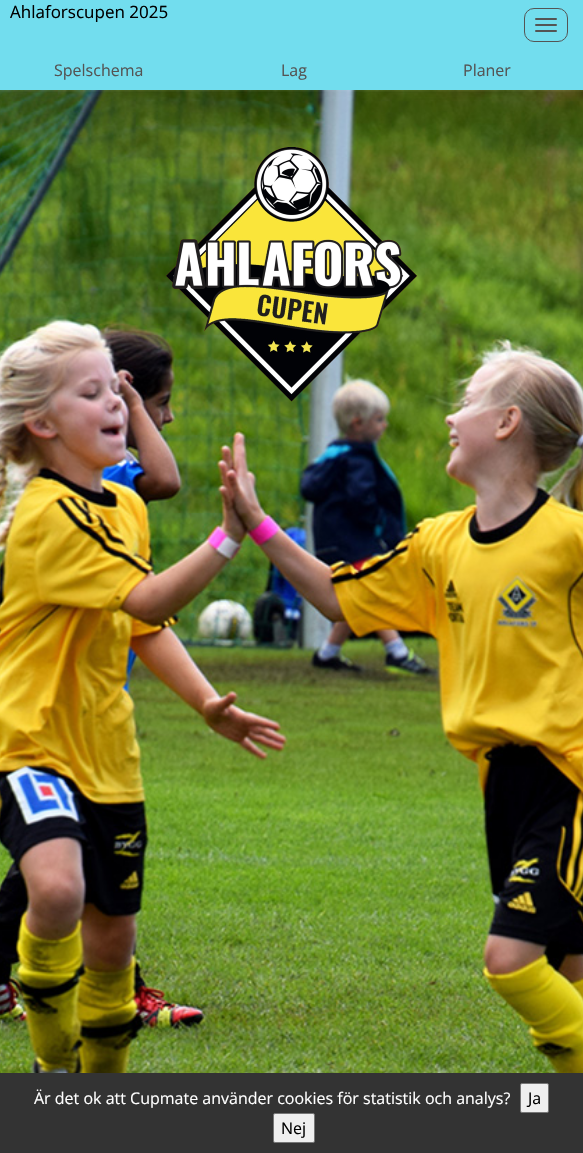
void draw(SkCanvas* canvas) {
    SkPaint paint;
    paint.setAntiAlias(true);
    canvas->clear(0xFFFFFFFF);
    paint.setColor(0xFF72DDEE);
    canvas->drawRect(SkRect::MakeXYWH(0, 0, 583, 90), paint);
    SkFont font1(fontMgr->matchFamilyStyle("Open Sans", SkFontStyle::Normal()), 17);
    font1.setSubpixel(true);
    paint.setColor(0xFF000000);
    canvas->drawString("Ahlaforscupen 2025", 10, 18, font1, paint);
    paint.setStyle(SkPaint::kStroke_Style);
    paint.setStrokeWidth(1);
    paint.setColor(0xFF545454);
    canvas->drawRoundRect(SkRect::MakeXYWH(524.5f, 8.5f, 43, 33), 9.5f, 9.5f, paint);
    paint.setStyle(SkPaint::kFill_Style);
    canvas->drawRoundRect(SkRect::MakeXYWH(535, 18, 22, 2), 1, 1, paint);
    canvas->drawRoundRect(SkRect::MakeXYWH(535, 24, 22, 2), 1, 1, paint);
    canvas->drawRoundRect(SkRect::MakeXYWH(535, 30, 22, 2), 1, 1, paint);
    SkFont font2(fontMgr->matchFamilyStyle("Open Sans", SkFontStyle::Normal()), 16);
    font2.setSubpixel(true);
    canvas->drawString("Spelschema", 54, 76, font2, paint);
    canvas->drawString("Lag", 281, 76, font2, paint);
    canvas->drawString("Planer", 463, 76, font2, paint);
    canvas->drawImageRect(SkImages::DeferredFromEncodedData(SkData::MakeFromFileName("img1.png")), SkRect::MakeXYWH(0, 90, 583, 983), SkSamplingOptions());
    canvas->drawImageRect(SkImages::DeferredFromEncodedData(SkData::MakeFromFileName("img2.png")), SkRect::MakeXYWH(166, 147, 251, 255), SkSamplingOptions());
    paint.setColor(0xFF333333);
    canvas->drawRect(SkRect::MakeXYWH(0, 1073, 583, 80), paint);
    paint.setColor(0xFFFFFFFF);
    canvas->drawString("Är det ok att Cupmate använder cookies för statistik och analys?", 34, 1104, font2, paint);
    paint.setColor(0xFFEFEFEF);
    canvas->drawRoundRect(SkRect::MakeXYWH(520.5f, 1083.5f, 28, 29), 1.5f, 1.5f, paint);
    paint.setStyle(SkPaint::kStroke_Style);
    paint.setColor(0xFF767676);
    canvas->drawRoundRect(SkRect::MakeXYWH(520.5f, 1083.5f, 28, 29), 1.5f, 1.5f, paint);
    paint.setStyle(SkPaint::kFill_Style);
    paint.setColor(0xFF000000);
    canvas->drawString("Ja", 528, 1104, font2, paint);
    paint.setColor(0xFFEFEFEF);
    canvas->drawRoundRect(SkRect::MakeXYWH(273.5f, 1113.5f, 41, 29), 1.5f, 1.5f, paint);
    paint.setStyle(SkPaint::kStroke_Style);
    paint.setColor(0xFF767676);
    canvas->drawRoundRect(SkRect::MakeXYWH(273.5f, 1113.5f, 41, 29), 1.5f, 1.5f, paint);
    paint.setStyle(SkPaint::kFill_Style);
    paint.setColor(0xFF000000);
    canvas->drawString("Nej", 281, 1134, font2, paint);
}
